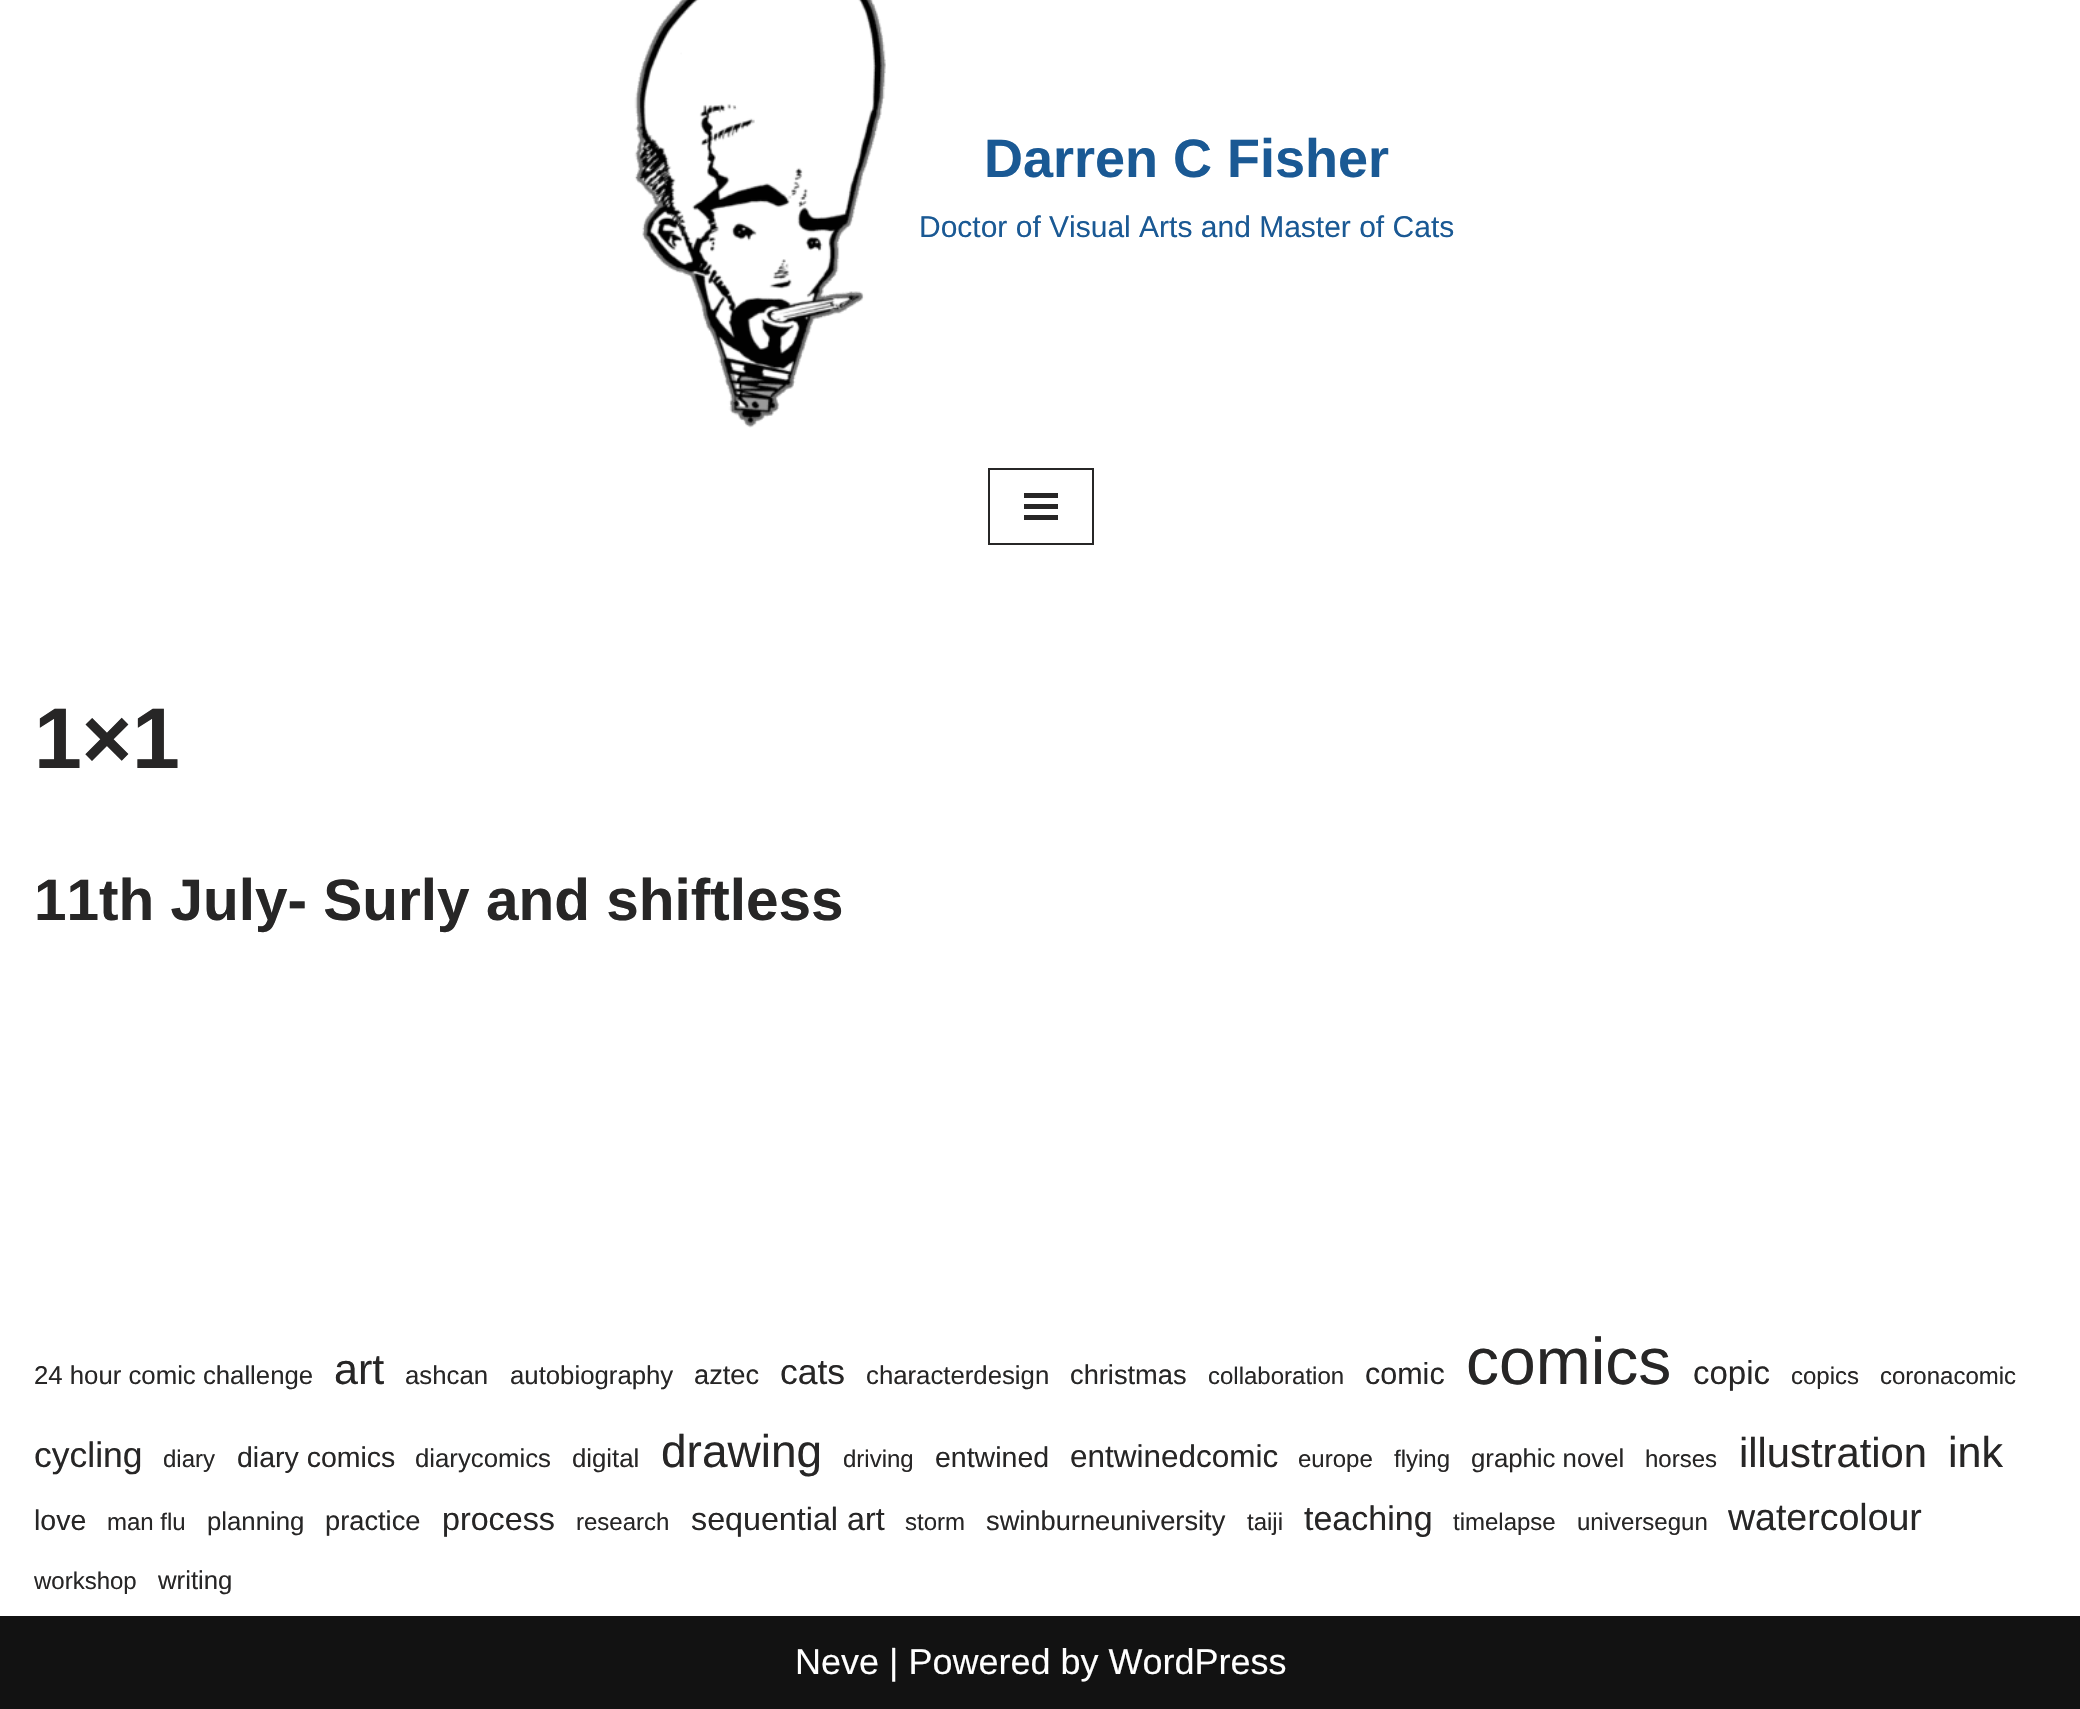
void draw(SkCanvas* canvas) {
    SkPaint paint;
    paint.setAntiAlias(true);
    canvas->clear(0xFFFFFFFF);
    canvas->drawImageRect(SkImages::DeferredFromEncodedData(SkData::MakeFromFileName("img1.png")), SkRect::MakeXYWH(634, 0, 252, 428), SkSamplingOptions());
    SkFont font1(fontMgr->matchFamilyStyle("Liberation Sans", SkFontStyle::Bold()), 54);
    font1.setSubpixel(true);
    paint.setColor(0xFF1A5994);
    canvas->drawString("Darren C Fisher", 984, 177, font1, paint);
    SkFont font2(fontMgr->matchFamilyStyle("Liberation Sans", SkFontStyle::Normal()), 30);
    font2.setSubpixel(true);
    canvas->drawString("Doctor of Visual Arts and Master of Cats", 919, 237, font2, paint);
    paint.setStyle(SkPaint::kStroke_Style);
    paint.setStrokeWidth(2);
    paint.setColor(0xFF272626);
    canvas->drawRect(SkRect::MakeXYWH(989, 469, 104, 75), paint);
    paint.setStyle(SkPaint::kFill_Style);
    canvas->drawRect(SkRect::MakeXYWH(1024, 493, 34, 5), paint);
    canvas->drawRect(SkRect::MakeXYWH(1024, 504, 34, 5), paint);
    canvas->drawRect(SkRect::MakeXYWH(1024, 515, 34, 5), paint);
    SkFont font3(fontMgr->matchFamilyStyle("Liberation Sans", SkFontStyle::Bold()), 86);
    font3.setSubpixel(true);
    canvas->drawString("1×1", 34, 768, font3, paint);
    SkFont font4(fontMgr->matchFamilyStyle("Liberation Sans", SkFontStyle::Bold()), 58.5f);
    font4.setSubpixel(true);
    canvas->drawString("11th July- Surly and shiftless", 34, 920, font4, paint);
    SkFont font5(fontMgr->matchFamilyStyle("Liberation Sans", SkFontStyle::Normal()), 25.75f);
    font5.setSubpixel(true);
    canvas->drawString("24 hour comic challenge", 34, 1384, font5, paint);
    SkFont font6(fontMgr->matchFamilyStyle("Liberation Sans", SkFontStyle::Normal()), 43);
    font6.setSubpixel(true);
    canvas->drawString("art", 334, 1384, font6, paint);
    canvas->drawString("ashcan", 405, 1384, font5, paint);
    canvas->drawString("autobiography", 510, 1384, font5, paint);
    SkFont font7(fontMgr->matchFamilyStyle("Liberation Sans", SkFontStyle::Normal()), 27.25f);
    font7.setSubpixel(true);
    canvas->drawString("aztec", 694, 1384, font7, paint);
    SkFont font8(fontMgr->matchFamilyStyle("Liberation Sans", SkFontStyle::Normal()), 35.5f);
    font8.setSubpixel(true);
    canvas->drawString("cats", 780, 1384, font8, paint);
    canvas->drawString("characterdesign", 866, 1384, font5, paint);
    canvas->drawString("christmas", 1070, 1384, font7, paint);
    SkFont font9(fontMgr->matchFamilyStyle("Liberation Sans", SkFontStyle::Normal()), 24);
    font9.setSubpixel(true);
    canvas->drawString("collaboration", 1208, 1384, font9, paint);
    SkFont font10(fontMgr->matchFamilyStyle("Liberation Sans", SkFontStyle::Normal()), 30.5f);
    font10.setSubpixel(true);
    canvas->drawString("comic", 1365, 1384, font10, paint);
    SkFont font11(fontMgr->matchFamilyStyle("Liberation Sans", SkFontStyle::Normal()), 66);
    font11.setSubpixel(true);
    canvas->drawString("comics", 1466, 1384, font11, paint);
    SkFont font12(fontMgr->matchFamilyStyle("Liberation Sans", SkFontStyle::Normal()), 33);
    font12.setSubpixel(true);
    canvas->drawString("copic", 1693, 1384, font12, paint);
    canvas->drawString("copics", 1791, 1384, font9, paint);
    canvas->drawString("coronacomic", 1880, 1384, font9, paint);
    canvas->drawString("cycling", 34, 1467, font8, paint);
    canvas->drawString("diary", 163, 1467, font9, paint);
    SkFont font13(fontMgr->matchFamilyStyle("Liberation Sans", SkFontStyle::Normal()), 28.5f);
    font13.setSubpixel(true);
    canvas->drawString("diary comics", 237, 1467, font13, paint);
    canvas->drawString("diarycomics", 415, 1467, font5, paint);
    canvas->drawString("digital", 572, 1467, font5, paint);
    SkFont font14(fontMgr->matchFamilyStyle("Liberation Sans", SkFontStyle::Normal()), 46);
    font14.setSubpixel(true);
    canvas->drawString("drawing", 661, 1467, font14, paint);
    canvas->drawString("driving", 843, 1467, font9, paint);
    canvas->drawString("entwined", 935, 1467, font13, paint);
    SkFont font15(fontMgr->matchFamilyStyle("Liberation Sans", SkFontStyle::Normal()), 31.5f);
    font15.setSubpixel(true);
    canvas->drawString("entwinedcomic", 1070, 1467, font15, paint);
    canvas->drawString("europe", 1298, 1467, font9, paint);
    canvas->drawString("flying", 1394, 1467, font9, paint);
    canvas->drawString("graphic novel", 1471, 1467, font5, paint);
    canvas->drawString("horses", 1645, 1467, font9, paint);
    SkFont font16(fontMgr->matchFamilyStyle("Liberation Sans", SkFontStyle::Normal()), 41.75f);
    font16.setSubpixel(true);
    canvas->drawString("illustration", 1739, 1467, font16, paint);
    canvas->drawString("ink", 1948, 1467, font6, paint);
    canvas->drawString("love", 34, 1530, font13, paint);
    canvas->drawString("man flu", 107, 1530, font9, paint);
    canvas->drawString("planning", 207, 1530, font5, paint);
    canvas->drawString("practice", 325, 1530, font7, paint);
    SkFont font17(fontMgr->matchFamilyStyle("Liberation Sans", SkFontStyle::Normal()), 32.25f);
    font17.setSubpixel(true);
    canvas->drawString("process", 442, 1530, font17, paint);
    canvas->drawString("research", 576, 1530, font9, paint);
    canvas->drawString("sequential art", 691, 1530, font17, paint);
    canvas->drawString("storm", 905, 1530, font9, paint);
    canvas->drawString("swinburneuniversity", 986, 1530, font7, paint);
    canvas->drawString("taiji", 1247, 1530, font9, paint);
    SkFont font18(fontMgr->matchFamilyStyle("Liberation Sans", SkFontStyle::Normal()), 34);
    font18.setSubpixel(true);
    canvas->drawString("teaching", 1304, 1530, font18, paint);
    canvas->drawString("timelapse", 1453, 1530, font9, paint);
    canvas->drawString("universegun", 1577, 1530, font9, paint);
    SkFont font19(fontMgr->matchFamilyStyle("Liberation Sans", SkFontStyle::Normal()), 37.5f);
    font19.setSubpixel(true);
    canvas->drawString("watercolour", 1728, 1530, font19, paint);
    canvas->drawString("workshop", 34, 1589, font9, paint);
    canvas->drawString("writing", 158, 1589, font5, paint);
    paint.setColor(0xFF121212);
    canvas->drawRect(SkRect::MakeXYWH(0, 1616, 2080, 93), paint);
    SkFont font20(fontMgr->matchFamilyStyle("Liberation Sans", SkFontStyle::Normal()), 36);
    font20.setSubpixel(true);
    paint.setColor(0xFFFFFFFF);
    canvas->drawString("Neve | Powered by WordPress", 795, 1674, font20, paint);
}
